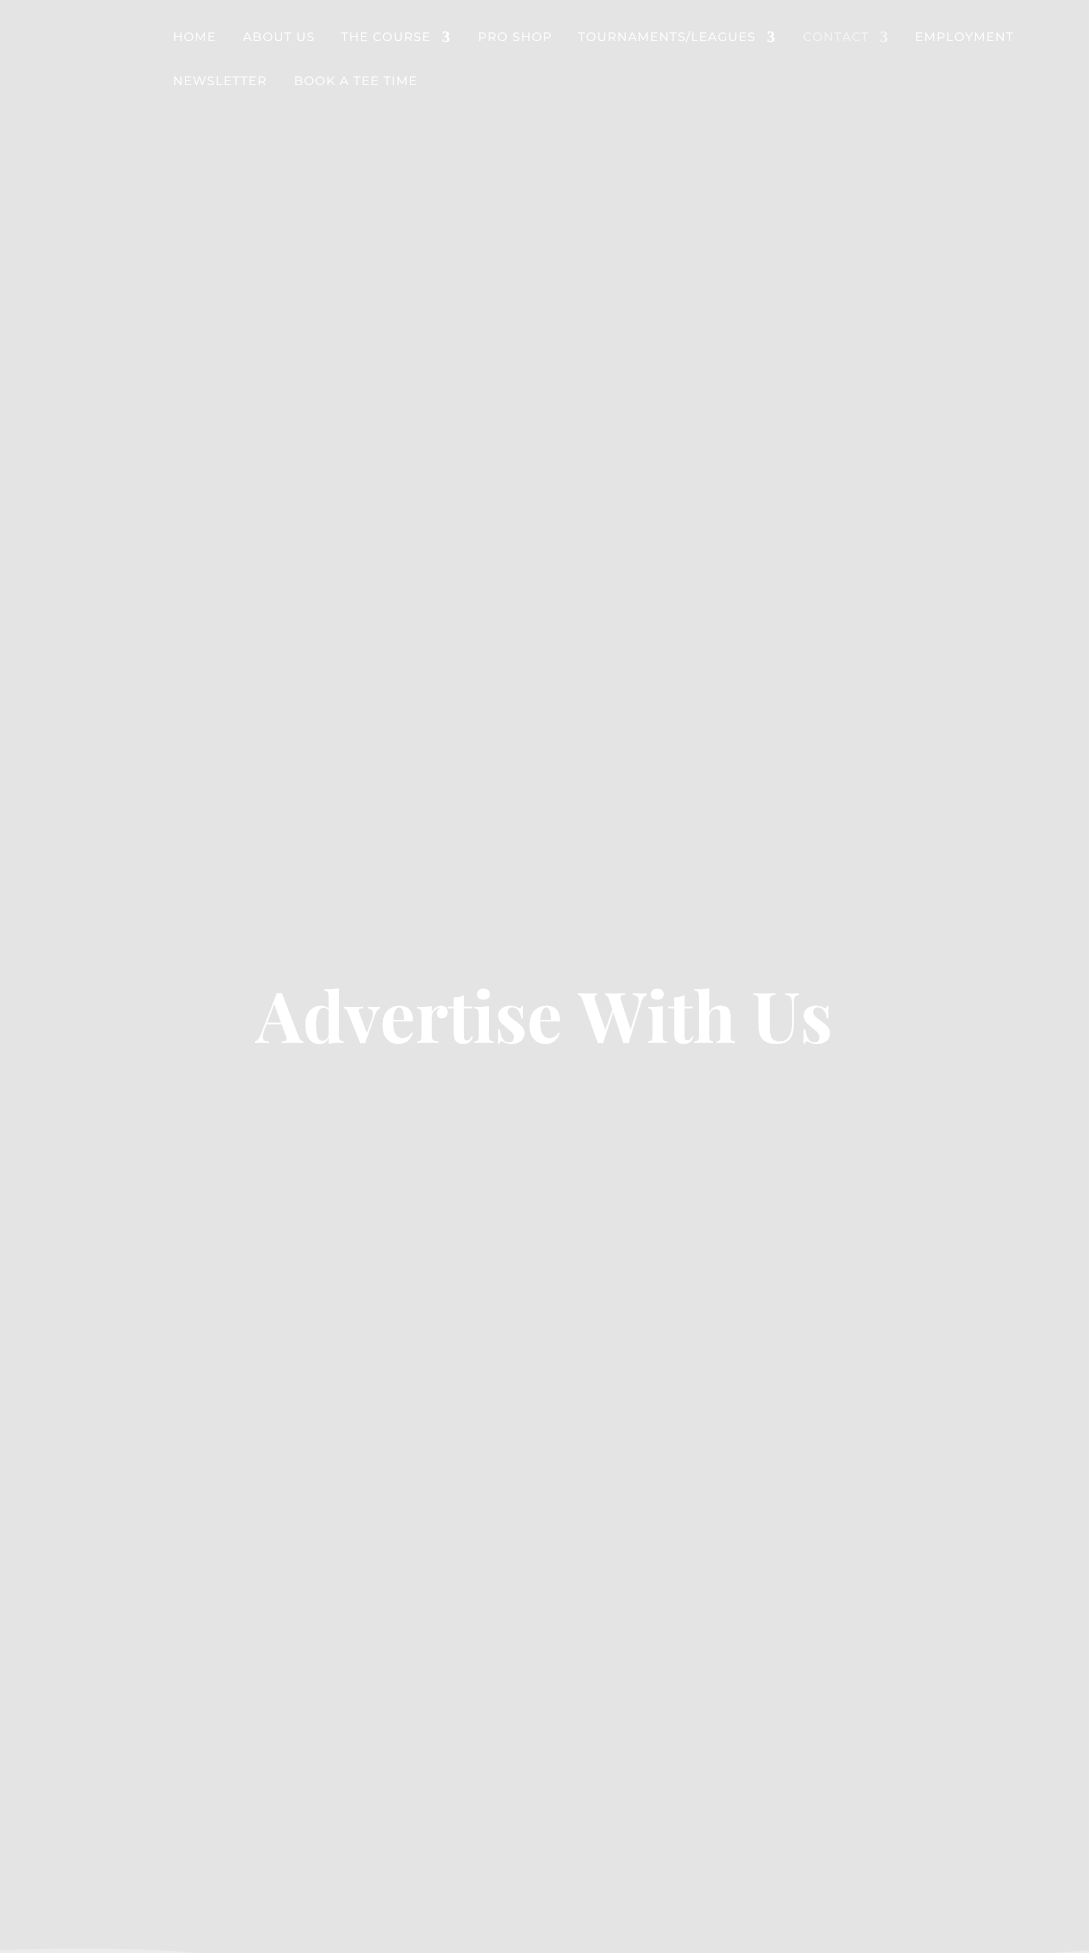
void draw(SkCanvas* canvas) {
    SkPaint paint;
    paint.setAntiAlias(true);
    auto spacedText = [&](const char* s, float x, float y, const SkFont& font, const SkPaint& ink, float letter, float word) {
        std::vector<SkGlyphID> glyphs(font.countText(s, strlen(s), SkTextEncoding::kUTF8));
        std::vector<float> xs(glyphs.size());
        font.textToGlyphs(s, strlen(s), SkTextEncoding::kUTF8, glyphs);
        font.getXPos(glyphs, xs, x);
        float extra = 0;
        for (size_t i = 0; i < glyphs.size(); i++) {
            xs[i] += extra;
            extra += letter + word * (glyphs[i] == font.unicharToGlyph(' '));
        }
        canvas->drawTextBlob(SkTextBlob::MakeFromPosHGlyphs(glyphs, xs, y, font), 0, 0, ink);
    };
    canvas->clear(0xFFE4E4E4);
    SkFont font1(fontMgr->matchFamilyStyle("Montserrat", SkFontStyle(100, SkFontStyle::kNormal_Width, SkFontStyle::kUpright_Slant)), 12);
    font1.setSubpixel(true);
    paint.setColor(0xFFFFFFFF);
    spacedText("HOME", 173, 41, font1, paint, 1, 0);
    spacedText("ABOUT US", 243, 41, font1, paint, 1, 0);
    spacedText("THE COURSE", 341, 41, font1, paint, 1, 0);
    SkFont font2(fontMgr->matchFamilyStyle("Liberation Serif", SkFontStyle::Bold()), 16);
    font2.setSubpixel(true);
    spacedText("3", 442, 42, font2, paint, 1, 0);
    spacedText("PRO SHOP", 478, 41, font1, paint, 1, 0);
    spacedText("TOURNAMENTS/LEAGUES", 578, 41, font1, paint, 1, 0);
    spacedText("3", 767, 42, font2, paint, 1, 0);
    paint.setColor(0xFFF5F5F5);
    spacedText("CONTACT", 803, 41, font1, paint, 1, 0);
    spacedText("3", 880, 42, font2, paint, 1, 0);
    paint.setColor(0xFFFFFFFF);
    spacedText("EMPLOYMENT", 915, 41, font1, paint, 1, 0);
    spacedText("NEWSLETTER", 173, 85, font1, paint, 1, 0);
    spacedText("BOOK A TEE TIME", 294, 85, font1, paint, 1, 0);
    SkFont font3(fontMgr->matchFamilyStyle("Playfair Display", SkFontStyle::Bold()), 70);
    font3.setSubpixel(true);
    canvas->drawString("Advertise With Us", 256, 1043, font3, paint);
    canvas->drawImageRect(SkImages::DeferredFromEncodedData(SkData::MakeFromFileName("img1.png")), SkRect::MakeXYWH(0, 1948, 1089, 5), SkSamplingOptions());
}
